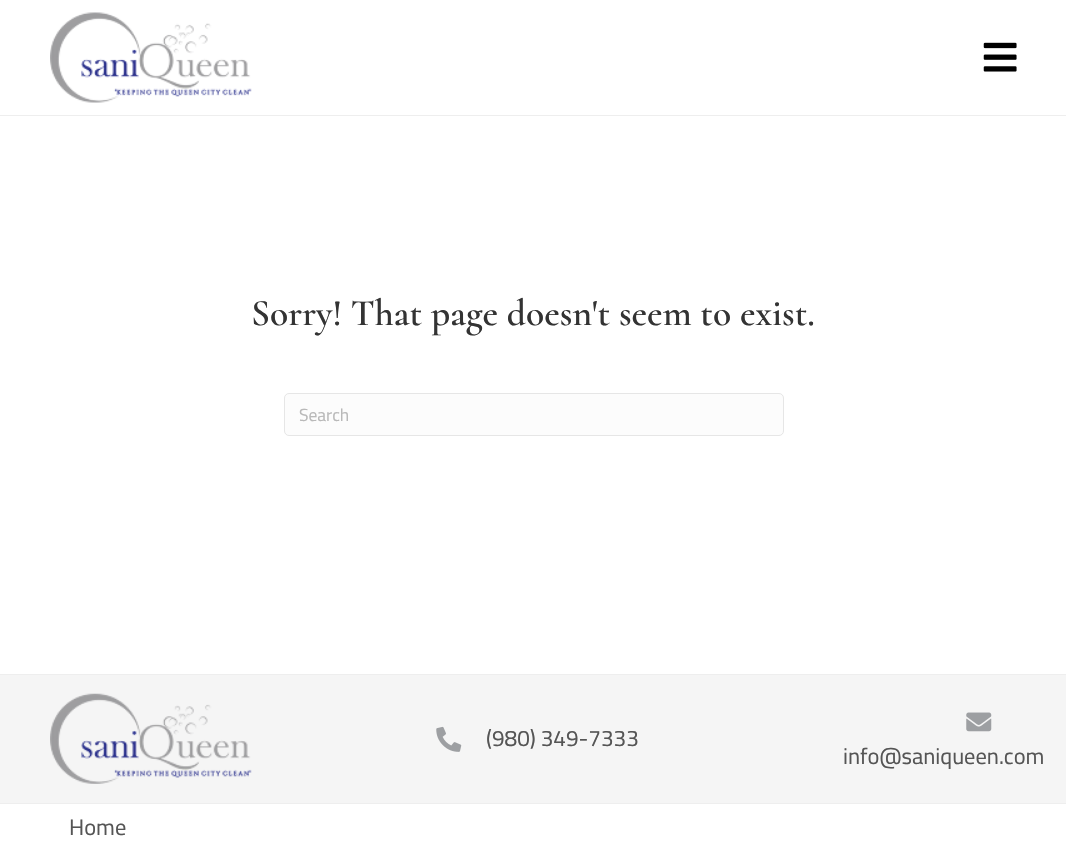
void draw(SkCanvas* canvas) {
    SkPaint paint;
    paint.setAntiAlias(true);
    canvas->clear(0xFFFFFFFF);
    paint.setColor(0xFFEEEEEE);
    canvas->drawRect(SkRect::MakeXYWH(0, 115, 1066, 1), paint);
    canvas->drawImageRect(SkImages::DeferredFromEncodedData(SkData::MakeFromFileName("img1.png")), SkRect::MakeXYWH(50, 12, 202, 91), SkSamplingOptions());
    canvas->drawImageRect(SkImages::DeferredFromEncodedData(SkData::MakeFromFileName("img2.png")), SkRect::MakeXYWH(983, 42, 34, 30), SkSamplingOptions());
    SkFont font1(fontMgr->matchFamilyStyle("Cormorant", SkFontStyle(600, SkFontStyle::kNormal_Width, SkFontStyle::kUpright_Slant)), 37.5f);
    font1.setSubpixel(true);
    paint.setColor(0xFF333333);
    canvas->drawString("Sorry! That page doesn't seem to exist.", 251, 325, font1, paint);
    paint.setColor(0xFFFCFCFC);
    canvas->drawRoundRect(SkRect::MakeXYWH(284.5f, 393.5f, 499, 42), 4.5f, 4.5f, paint);
    paint.setStyle(SkPaint::kStroke_Style);
    paint.setStrokeWidth(1);
    paint.setColor(0xFFE6E6E6);
    canvas->drawRoundRect(SkRect::MakeXYWH(284.5f, 393.5f, 499, 42), 4.5f, 4.5f, paint);
    SkFont font2(fontMgr->matchFamilyStyle("Cairo", SkFontStyle::Normal()), 17.5f);
    font2.setSubpixel(true);
    paint.setStyle(SkPaint::kFill_Style);
    paint.setColor(0xFFB9B9B9);
    canvas->drawString("Search", 299, 421, font2, paint);
    paint.setColor(0xFFF5F5F5);
    canvas->drawRect(SkRect::MakeXYWH(0, 675, 1066, 128), paint);
    paint.setColor(0xFFEEEEEE);
    canvas->drawRect(SkRect::MakeXYWH(0, 674, 1066, 1), paint);
    canvas->drawRect(SkRect::MakeXYWH(0, 803, 1066, 1), paint);
    canvas->drawImageRect(SkImages::DeferredFromEncodedData(SkData::MakeFromFileName("img3.png")), SkRect::MakeXYWH(50, 693, 202, 91), SkSamplingOptions());
    canvas->drawImageRect(SkImages::DeferredFromEncodedData(SkData::MakeFromFileName("img4.png")), SkRect::MakeXYWH(436, 726, 26, 26), SkSamplingOptions());
    SkFont font3(fontMgr->matchFamilyStyle("Cairo", SkFontStyle::Normal()), 22.5f);
    font3.setSubpixel(true);
    paint.setColor(0xFF555555);
    canvas->drawString("(980) 349-7333", 486, 746, font3, paint);
    canvas->drawImageRect(SkImages::DeferredFromEncodedData(SkData::MakeFromFileName("img5.png")), SkRect::MakeXYWH(966, 712, 26, 20), SkSamplingOptions());
    canvas->drawString("info@saniqueen.com", 843, 764, font3, paint);
    canvas->drawString("Home", 69, 835, font3, paint);
}
